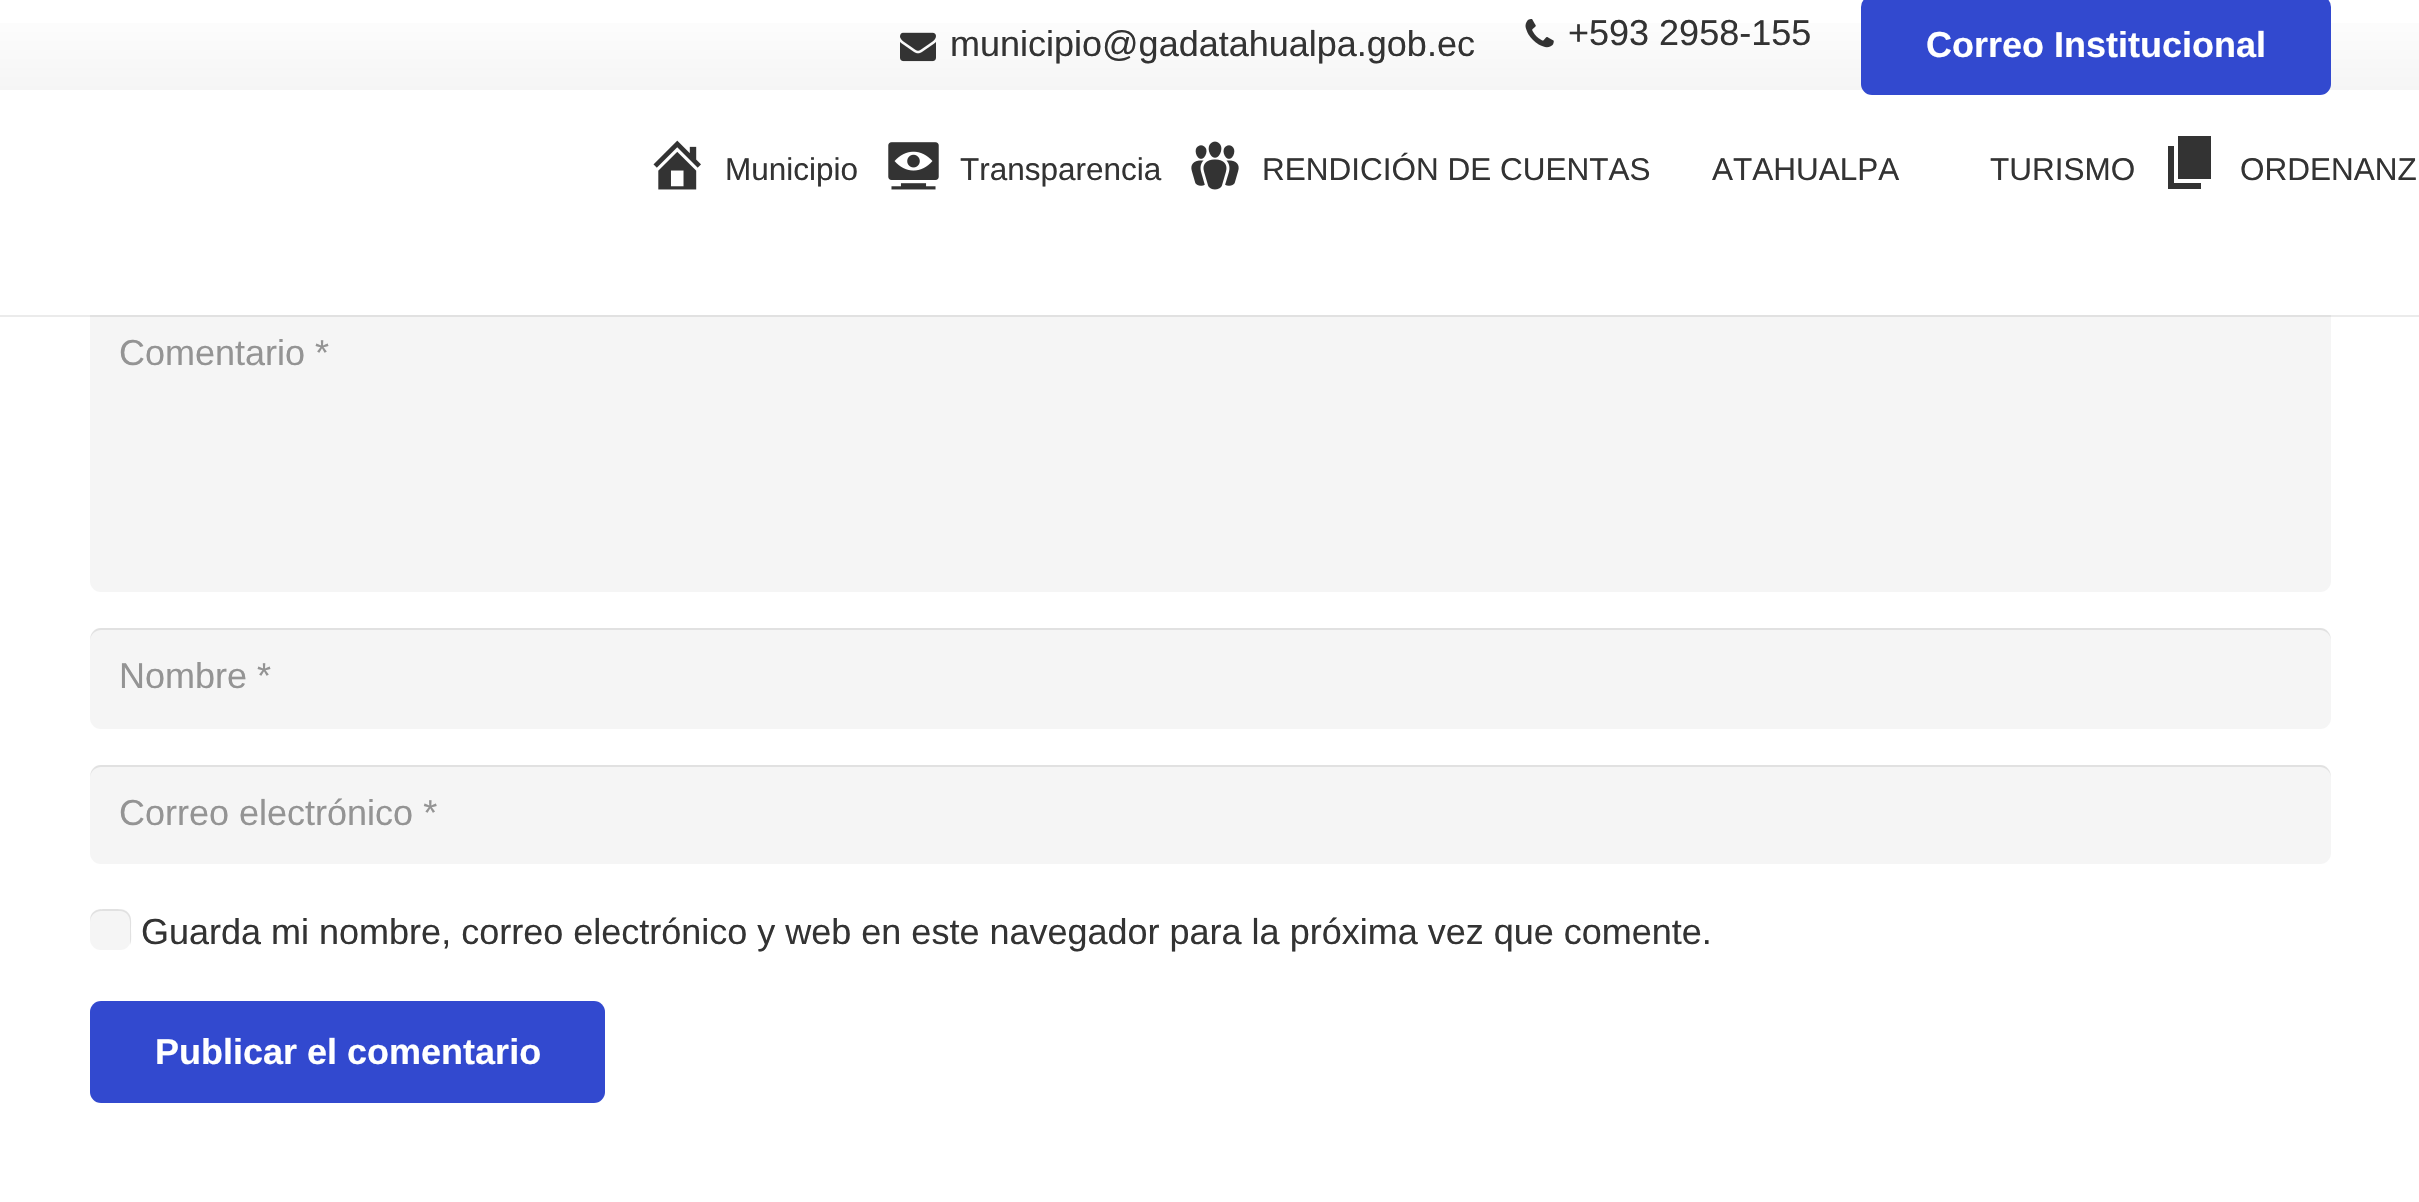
void draw(SkCanvas* canvas) {
    SkPaint paint;
    paint.setAntiAlias(true);
    canvas->clear(0xFFFFFFFF);
    {
        const SkColor colors[] = {0xFFF5F5F5, 0xFFFFFFFF};
        const float stops[] = {0, 1};
        const SkPoint ends[] = {{1211, 90}, {1211, 0}};
        paint.setShader(SkGradientShader::MakeLinear(ends, colors, stops, 2, SkTileMode::kClamp));
        paint.setAlpha(255);
    }
    canvas->drawRect(SkRect::MakeXYWH(0, 23, 2419, 67), paint);
    canvas->drawImageRect(SkImages::DeferredFromEncodedData(SkData::MakeFromFileName("img1.png")), SkRect::MakeXYWH(900, 32, 36, 30), SkSamplingOptions());
    SkFont font1(fontMgr->matchFamilyStyle("Liberation Sans", SkFontStyle::Normal()), 36);
    font1.setSubpixel(true);
    paint.setShader(nullptr);
    paint.setColor(0xFF333333);
    canvas->drawString("municipio@gadatahualpa.gob.ec", 950, 56, font1, paint);
    canvas->drawImageRect(SkImages::DeferredFromEncodedData(SkData::MakeFromFileName("img2.png")), SkRect::MakeXYWH(1525, 19, 29, 29), SkSamplingOptions());
    canvas->drawString("+593 2958-155", 1568, 45, font1, paint);
    paint.setColor(0xFF3249CF);
    canvas->drawRoundRect(SkRect::MakeXYWH(1861, -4, 470, 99), 11, 11, paint);
    SkFont font2(fontMgr->matchFamilyStyle("Liberation Sans", SkFontStyle::Bold()), 36);
    font2.setSubpixel(true);
    paint.setColor(0xFFFFFFFF);
    canvas->drawString("Correo Institucional", 1926, 57, font2, paint);
    paint.setColor(0xFFF5F5F5);
    canvas->drawRoundRect(SkRect::MakeXYWH(90, 304, 2241, 288), 11, 11, paint);
    paint.setColor(0x14000000);
    canvas->drawRect(SkRect::MakeXYWH(0, 315, 2419, 2), paint);
    paint.setColor(0xFFFFFFFF);
    canvas->drawRect(SkRect::MakeXYWH(90, 304, 2241, 11), paint);
    canvas->drawImageRect(SkImages::DeferredFromEncodedData(SkData::MakeFromFileName("img3.png")), SkRect::MakeXYWH(653, 140, 48, 50), SkSamplingOptions());
    SkFont font3(fontMgr->matchFamilyStyle("Liberation Sans", SkFontStyle::Normal()), 31.5f);
    font3.setSubpixel(true);
    paint.setColor(0xFF333333);
    canvas->drawString("Municipio", 725, 180, font3, paint);
    canvas->drawImageRect(SkImages::DeferredFromEncodedData(SkData::MakeFromFileName("img4.png")), SkRect::MakeXYWH(888, 142, 51, 48), SkSamplingOptions());
    canvas->drawString("Transparencia", 960, 180, font3, paint);
    canvas->drawImageRect(SkImages::DeferredFromEncodedData(SkData::MakeFromFileName("img5.png")), SkRect::MakeXYWH(1191, 141, 48, 49), SkSamplingOptions());
    canvas->drawString("RENDICIÓN DE CUENTAS", 1262, 180, font3, paint);
    canvas->drawString("ATAHUALPA", 1712, 180, font3, paint);
    canvas->drawString("TURISMO", 1990, 180, font3, paint);
    canvas->drawPath(SkPathBuilder().moveTo(2178, 179).lineTo(2178, 136).lineTo(2211, 136).lineTo(2211, 179).close().moveTo(2174, 183).lineTo(2201, 183).lineTo(2201, 189).lineTo(2168, 189).lineTo(2168, 146).lineTo(2174, 146).close().detach(), paint);
    canvas->drawString("ORDENANZ", 2240, 180, font3, paint);
    paint.setColor(0xFF949494);
    canvas->drawString("Comentario *", 119, 365, font1, paint);
    paint.setColor(0xFFF5F5F5);
    canvas->drawRoundRect(SkRect::MakeXYWH(90, 628, 2241, 101), 11, 11, paint);
    paint.setColor(0x14000000);
    canvas->drawPath(SkPathBuilder().moveTo(101, 630).lineTo(2320, 630).cubicTo(2326, 630, 2331, 635, 2331, 641).cubicTo(2331, 634, 2327, 628, 2320, 628).lineTo(101, 628).cubicTo(94, 628, 90, 634, 90, 641).cubicTo(90, 635, 95, 630, 101, 630).close().detach(), paint);
    paint.setColor(0xFF949494);
    canvas->drawString("Nombre *", 119, 688, font1, paint);
    paint.setColor(0xFFF5F5F5);
    canvas->drawRoundRect(SkRect::MakeXYWH(90, 765, 2241, 99), 11, 11, paint);
    paint.setColor(0x14000000);
    canvas->drawPath(SkPathBuilder().moveTo(101, 767).lineTo(2320, 767).cubicTo(2326, 767, 2331, 772, 2331, 778).cubicTo(2331, 771, 2327, 765, 2320, 765).lineTo(101, 765).cubicTo(94, 765, 90, 771, 90, 778).cubicTo(90, 772, 95, 767, 101, 767).close().detach(), paint);
    paint.setColor(0xFF949494);
    canvas->drawString("Correo electrónico *", 119, 825, font1, paint);
    paint.setColor(0xFFF5F5F5);
    canvas->drawRoundRect(SkRect::MakeXYWH(90, 909, 41, 41), 11, 11, paint);
    paint.setColor(0x14000000);
    canvas->drawPath(SkPathBuilder().moveTo(101, 911).lineTo(120, 911).cubicTo(126, 911, 130, 916, 130, 922).lineTo(130, 941).lineTo(130, 945).cubicTo(132, 940, 131, 934, 131, 930).cubicTo(131, 924, 132, 918, 129, 914).cubicTo(125, 908, 117, 909, 110, 909).cubicTo(100, 909, 90, 908, 90, 922).cubicTo(90, 916, 95, 911, 101, 911).close().detach(), paint);
    paint.setColor(0xFF333333);
    canvas->drawString("Guarda mi nombre, correo electrónico y web en este navegador para la próxima vez que comente.", 141, 944, font1, paint);
    paint.setColor(0xFF3249CF);
    canvas->drawRoundRect(SkRect::MakeXYWH(90, 1001, 515, 102), 11, 11, paint);
    paint.setColor(0xFFFFFFFF);
    canvas->drawString("Publicar el comentario", 155, 1064, font2, paint);
}
